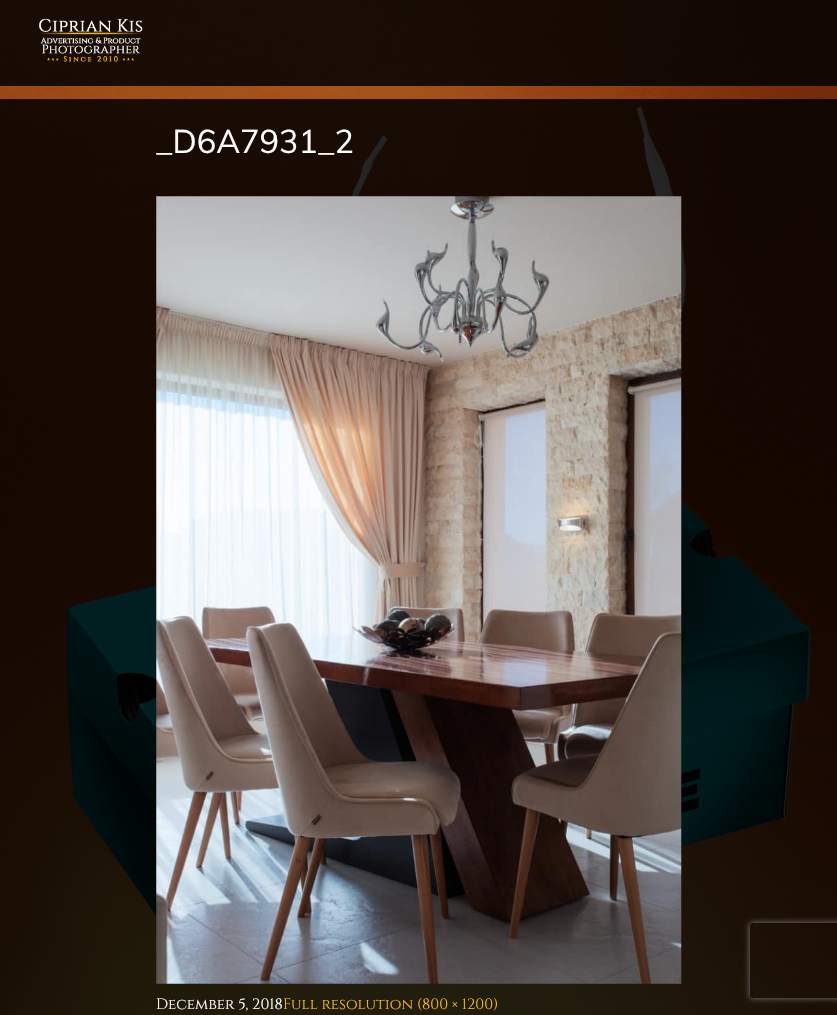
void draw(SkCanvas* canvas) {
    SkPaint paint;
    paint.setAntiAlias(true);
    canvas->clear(0xFFFFFFFF);
    canvas->drawImageRect(SkImages::DeferredFromEncodedData(SkData::MakeFromFileName("img1.png")), SkRect::MakeXYWH(0, 0, 837, 1015), SkSamplingOptions());
    paint.setColor(0xD9000000);
    canvas->drawRect(SkRect::MakeXYWH(0, 0, 837, 86), paint);
    canvas->drawImageRect(SkImages::DeferredFromEncodedData(SkData::MakeFromFileName("img2.png")), SkRect::MakeXYWH(39, 18, 104, 44), SkSamplingOptions());
    SkFont font1(fontMgr->matchFamilyStyle("Muli", SkFontStyle::Normal()), 32.5f);
    font1.setSubpixel(true);
    paint.setColor(0xFFFFFFFF);
    canvas->drawString("_D6A7931_2", 156, 153, font1, paint);
    canvas->drawImageRect(SkImages::DeferredFromEncodedData(SkData::MakeFromFileName("img3.png")), SkRect::MakeXYWH(156, 196, 526, 788), SkSamplingOptions());
    SkFont font2(fontMgr->matchFamilyStyle("Cinzel", SkFontStyle::Normal()), 15);
    font2.setSubpixel(true);
    canvas->drawString("December 5, 2018", 156, 1009, font2, paint);
    paint.setColor(0xFFF9B91C);
    canvas->drawString("Full resolution (800 × 1200)", 283, 1009, font2, paint);
    canvas->save();
    canvas->clipPath(SkPathBuilder(SkPathFillType::kEvenOdd).moveTo(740, 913).lineTo(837, 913).lineTo(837, 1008).lineTo(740, 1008).close().moveTo(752.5f, 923).lineTo(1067.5f, 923).cubicTo(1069, 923, 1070, 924, 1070, 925.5f).lineTo(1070, 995.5f).cubicTo(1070, 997, 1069, 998, 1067.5f, 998).lineTo(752.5f, 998).cubicTo(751, 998, 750, 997, 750, 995.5f).lineTo(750, 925.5f).cubicTo(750, 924, 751, 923, 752.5f, 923).close().detach(), true);
    paint.setColor(0xFF808080);
    paint.setMaskFilter(SkMaskFilter::MakeBlur(kNormal_SkBlurStyle, 3));
    canvas->drawRoundRect(SkRect::MakeXYWH(750, 923, 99, 75), 2.5f, 2.5f, paint);
    paint.setMaskFilter(nullptr);
    canvas->restore();
}
